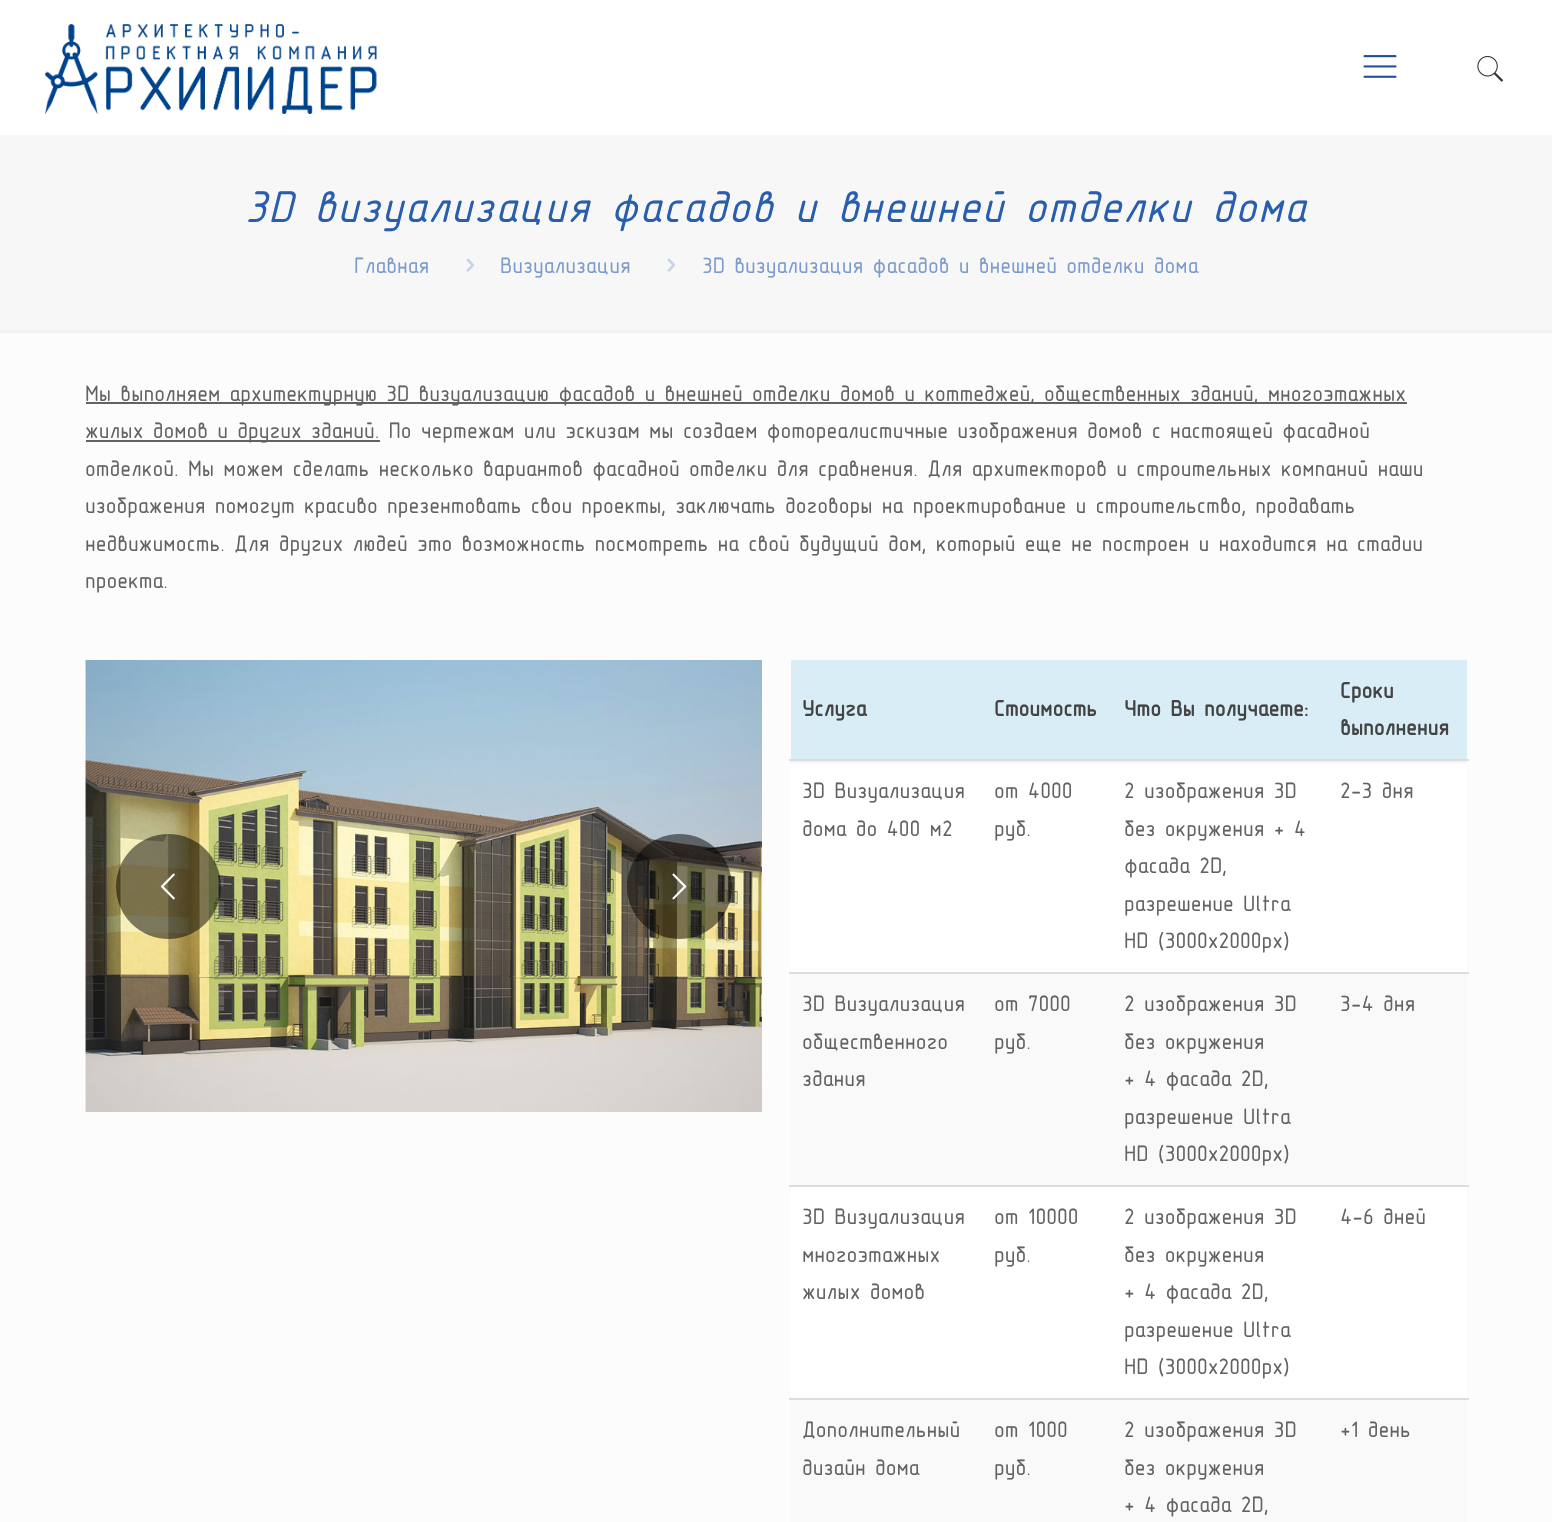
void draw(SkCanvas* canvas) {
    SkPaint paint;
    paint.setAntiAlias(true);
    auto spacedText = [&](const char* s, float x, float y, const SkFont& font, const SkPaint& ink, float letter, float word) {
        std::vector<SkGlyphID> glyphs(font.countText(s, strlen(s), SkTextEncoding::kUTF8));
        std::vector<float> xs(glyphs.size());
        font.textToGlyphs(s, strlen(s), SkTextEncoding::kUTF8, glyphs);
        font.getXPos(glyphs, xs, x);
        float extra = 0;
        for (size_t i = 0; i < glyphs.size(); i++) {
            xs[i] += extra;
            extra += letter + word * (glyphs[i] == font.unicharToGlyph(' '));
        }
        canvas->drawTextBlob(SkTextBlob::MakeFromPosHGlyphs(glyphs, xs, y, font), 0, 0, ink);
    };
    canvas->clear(0xFFFCFCFC);
    paint.setColor(0xFFFFFFFF);
    canvas->drawRect(SkRect::MakeXYWH(0, 0, 1552, 135), paint);
    canvas->drawImageRect(SkImages::DeferredFromEncodedData(SkData::MakeFromFileName("img1.png")), SkRect::MakeXYWH(45, 24, 332, 90), SkSamplingOptions());
    canvas->drawImageRect(SkImages::DeferredFromEncodedData(SkData::MakeFromFileName("img2.png")), SkRect::MakeXYWH(1363, 55, 34, 23), SkSamplingOptions());
    canvas->drawImageRect(SkImages::DeferredFromEncodedData(SkData::MakeFromFileName("img3.png")), SkRect::MakeXYWH(1477, 56, 27, 26), SkSamplingOptions());
    paint.setColor(0xFFF7F7F7);
    canvas->drawRect(SkRect::MakeXYWH(0, 135, 1552, 195), paint);
    SkFont font1(fontMgr->matchFamilyStyle("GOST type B", SkFontStyle::Italic()), 45);
    font1.setSubpixel(true);
    paint.setColor(0xFF295EAF);
    spacedText("3D визуализация фасадов и внешней отделки дома", 245, 222, font1, paint, 1.5f, 0);
    SkFont font2(fontMgr->matchFamilyStyle("GOST type B", SkFontStyle::Normal()), 22.5f);
    font2.setSubpixel(true);
    paint.setColor(0xFF7B9BCC);
    canvas->drawString("Главная", 354, 273, font2, paint);
    canvas->drawImageRect(SkImages::DeferredFromEncodedData(SkData::MakeFromFileName("img4.png")), SkRect::MakeXYWH(466, 258, 8, 14), SkSamplingOptions());
    canvas->drawString("Визуализация", 500, 273, font2, paint);
    canvas->drawImageRect(SkImages::DeferredFromEncodedData(SkData::MakeFromFileName("img4.png")), SkRect::MakeXYWH(667, 258, 8, 14), SkSamplingOptions());
    canvas->drawString("3D визуализация фасадов и внешней отделки дома", 702, 273, font2, paint);
    paint.setColor(0xFFF2F2F2);
    canvas->drawRect(SkRect::MakeXYWH(0, 330, 1552, 3), paint);
    paint.setColor(0xFF626262);
    canvas->drawRect(SkRect::MakeXYWH(86, 402, 1321, 2), paint);
    canvas->drawString("Мы выполняем архитектурную 3D визуализацию фасадов и внешней отделки домов и коттеджей, общественных зданий, многоэтажных", 85, 401, font2, paint);
    canvas->drawRect(SkRect::MakeXYWH(86, 440, 294, 2), paint);
    canvas->drawString("жилых домов и других зданий. По чертежам или эскизам мы создаем фотореалистичные изображения домов с настоящей фасадной", 85, 438, font2, paint);
    canvas->drawString("отделкой. Мы можем сделать несколько вариантов фасадной отделки для сравнения. Для архитекторов и строительных компаний наши", 85, 476, font2, paint);
    canvas->drawString("изображения помогут красиво презентовать свои проекты, заключать договоры на проектирование и строительство, продавать", 85, 513, font2, paint);
    canvas->drawString("недвижимость. Для других людей это возможность посмотреть на свой будущий дом, который еще не построен и находится на стадии", 85, 551, font2, paint);
    canvas->drawString("проекта.", 85, 588, font2, paint);
    canvas->drawImageRect(SkImages::DeferredFromEncodedData(SkData::MakeFromFileName("img5.png")), SkRect::MakeXYWH(85, 660, 677, 452), SkSamplingOptions());
    paint.setColor(0x80000000);
    canvas->drawCircle(168.5f, 886.5f, 52.5f, paint);
    canvas->drawImageRect(SkImages::DeferredFromEncodedData(SkData::MakeFromFileName("img6.png")), SkRect::MakeXYWH(160, 873, 15, 27), SkSamplingOptions());
    canvas->drawCircle(679.5f, 886.5f, 52.5f, paint);
    canvas->drawImageRect(SkImages::DeferredFromEncodedData(SkData::MakeFromFileName("img7.png")), SkRect::MakeXYWH(672, 873, 15, 27), SkSamplingOptions());
    paint.setColor(0xFFD9EDF7);
    canvas->drawRect(SkRect::MakeXYWH(791, 660, 676, 99), paint);
    SkFont font3(fontMgr->matchFamilyStyle("GOST type B", SkFontStyle::Bold()), 22.5f);
    font3.setSubpixel(true);
    paint.setColor(0xFF444444);
    canvas->drawString("Услуга", 802, 716, font3, paint);
    canvas->drawString("Стоимость", 994, 716, font3, paint);
    canvas->drawString("Что Вы получаете:", 1124, 716, font3, paint);
    paint.setColor(0xFFDDDDDD);
    canvas->drawRect(SkRect::MakeXYWH(789, 759, 680, 2), paint);
    paint.setColor(0xFF444444);
    canvas->drawString("Сроки", 1340, 698, font3, paint);
    canvas->drawString("выполнения", 1340, 735, font3, paint);
    paint.setColor(0xFFFFFFFF);
    canvas->drawRect(SkRect::MakeXYWH(791, 761, 676, 211), paint);
    canvas->drawImageRect(SkImages::DeferredFromEncodedData(SkData::MakeFromFileName("img8.png")), SkRect::MakeXYWH(790, 761, 193, 3), SkSamplingOptions());
    paint.setColor(0xFF626262);
    canvas->drawString("3D Визуализация", 802, 798, font2, paint);
    canvas->drawString("дома до 400 м2", 802, 836, font2, paint);
    canvas->drawImageRect(SkImages::DeferredFromEncodedData(SkData::MakeFromFileName("img9.png")), SkRect::MakeXYWH(982, 761, 130, 3), SkSamplingOptions());
    canvas->drawString("от 4000", 994, 798, font2, paint);
    canvas->drawString("руб.", 994, 836, font2, paint);
    canvas->drawImageRect(SkImages::DeferredFromEncodedData(SkData::MakeFromFileName("img10.png")), SkRect::MakeXYWH(1111, 761, 218, 3), SkSamplingOptions());
    canvas->drawString("2 изображения 3D", 1124, 798, font2, paint);
    canvas->drawString("без окружения + 4", 1124, 836, font2, paint);
    canvas->drawString("фасада 2D,", 1124, 873, font2, paint);
    canvas->drawString("разрешение Ultra", 1124, 911, font2, paint);
    canvas->drawString("HD (3000x2000px)", 1124, 948, font2, paint);
    canvas->drawImageRect(SkImages::DeferredFromEncodedData(SkData::MakeFromFileName("img11.png")), SkRect::MakeXYWH(1329, 761, 138, 3), SkSamplingOptions());
    canvas->drawString("2-3 дня", 1340, 798, font2, paint);
    paint.setColor(0xFFF9F9F9);
    canvas->drawRect(SkRect::MakeXYWH(791, 974, 676, 211), paint);
    paint.setColor(0xFF626262);
    canvas->drawString("3D Визуализация", 802, 1011, font2, paint);
    canvas->drawString("общественного", 802, 1049, font2, paint);
    canvas->drawString("здания", 802, 1086, font2, paint);
    canvas->drawString("от 7000", 994, 1011, font2, paint);
    canvas->drawString("руб.", 994, 1049, font2, paint);
    canvas->drawString("2 изображения 3D", 1124, 1011, font2, paint);
    canvas->drawString("без окружения", 1124, 1049, font2, paint);
    canvas->drawString("+ 4 фасада 2D,", 1124, 1086, font2, paint);
    canvas->drawString("разрешение Ultra", 1124, 1124, font2, paint);
    canvas->drawString("HD (3000x2000px)", 1124, 1161, font2, paint);
    paint.setColor(0xFFDDDDDD);
    canvas->drawRect(SkRect::MakeXYWH(789, 972, 680, 2), paint);
    paint.setColor(0xFF626262);
    canvas->drawString("3-4 дня", 1340, 1011, font2, paint);
    paint.setColor(0xFFFFFFFF);
    canvas->drawRect(SkRect::MakeXYWH(791, 1187, 676, 211), paint);
    paint.setColor(0xFF626262);
    canvas->drawString("3D Визуализация", 802, 1224, font2, paint);
    canvas->drawString("многоэтажных", 802, 1262, font2, paint);
    canvas->drawString("жилых домов", 802, 1299, font2, paint);
    canvas->drawString("от 10000", 994, 1224, font2, paint);
    canvas->drawString("руб.", 994, 1262, font2, paint);
    canvas->drawString("2 изображения 3D", 1124, 1224, font2, paint);
    canvas->drawString("без окружения", 1124, 1262, font2, paint);
    canvas->drawString("+ 4 фасада 2D,", 1124, 1299, font2, paint);
    canvas->drawString("разрешение Ultra", 1124, 1337, font2, paint);
    canvas->drawString("HD (3000x2000px)", 1124, 1374, font2, paint);
    paint.setColor(0xFFDDDDDD);
    canvas->drawRect(SkRect::MakeXYWH(789, 1185, 680, 2), paint);
    paint.setColor(0xFF626262);
    canvas->drawString("4-6 дней", 1340, 1224, font2, paint);
    paint.setColor(0xFFF9F9F9);
    canvas->drawRect(SkRect::MakeXYWH(791, 1400, 676, 122), paint);
    paint.setColor(0xFF626262);
    canvas->drawString("Дополнительный", 802, 1437, font2, paint);
    canvas->drawString("дизайн дома", 802, 1475, font2, paint);
    canvas->drawString("от 1000", 994, 1437, font2, paint);
    canvas->drawString("руб.", 994, 1475, font2, paint);
    canvas->drawString("2 изображения 3D", 1124, 1437, font2, paint);
    canvas->drawString("без окружения", 1124, 1475, font2, paint);
    canvas->drawString("+ 4 фасада 2D,", 1124, 1512, font2, paint);
    paint.setColor(0xFFDDDDDD);
    canvas->drawRect(SkRect::MakeXYWH(789, 1398, 680, 2), paint);
    paint.setColor(0xFF626262);
    canvas->drawString("+1 день", 1340, 1437, font2, paint);
}
